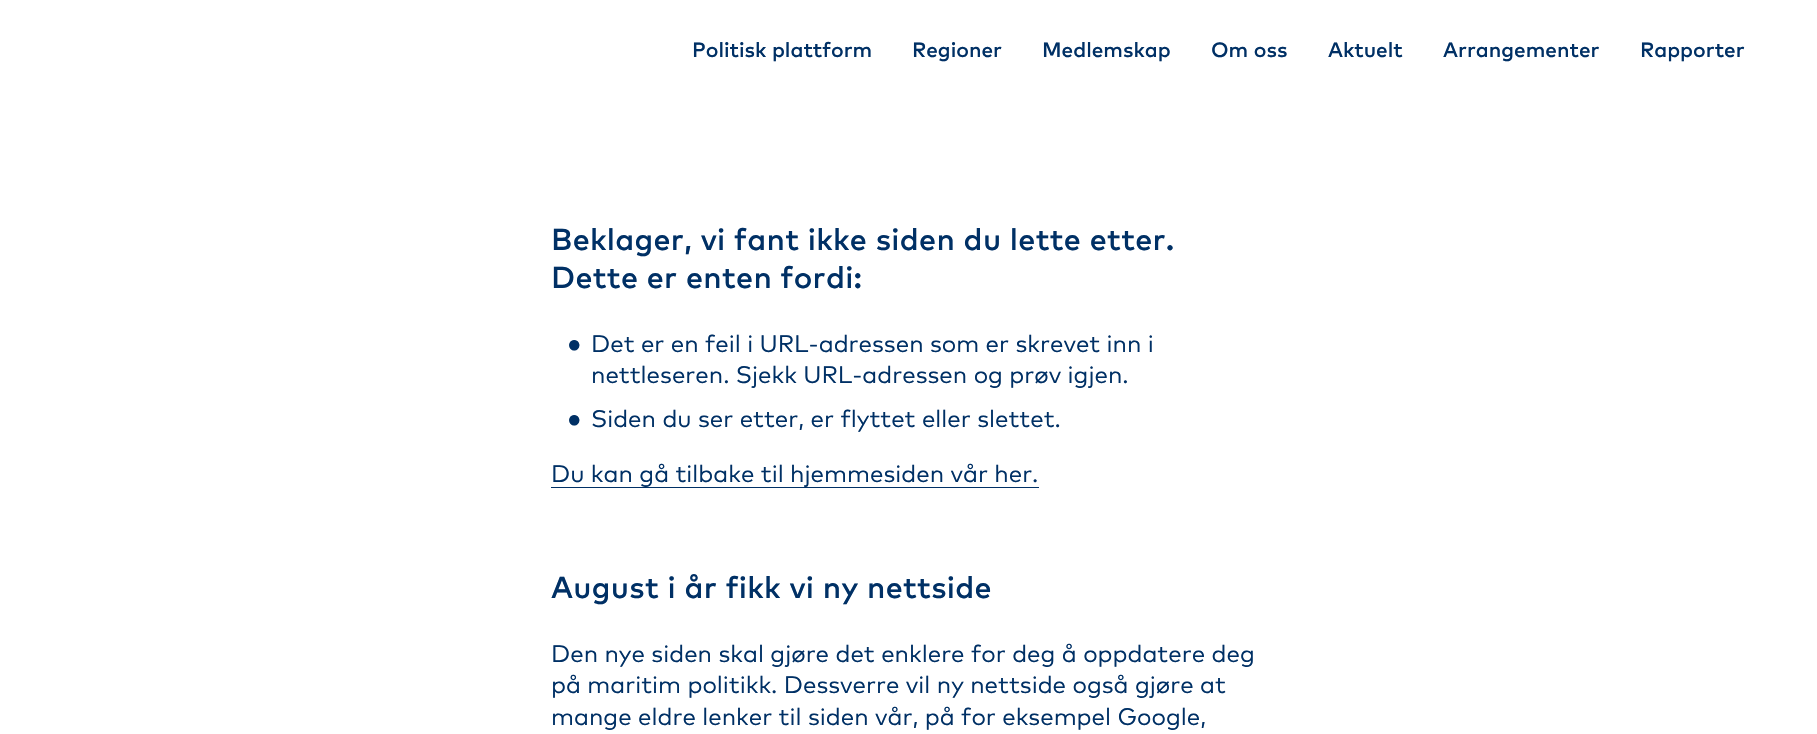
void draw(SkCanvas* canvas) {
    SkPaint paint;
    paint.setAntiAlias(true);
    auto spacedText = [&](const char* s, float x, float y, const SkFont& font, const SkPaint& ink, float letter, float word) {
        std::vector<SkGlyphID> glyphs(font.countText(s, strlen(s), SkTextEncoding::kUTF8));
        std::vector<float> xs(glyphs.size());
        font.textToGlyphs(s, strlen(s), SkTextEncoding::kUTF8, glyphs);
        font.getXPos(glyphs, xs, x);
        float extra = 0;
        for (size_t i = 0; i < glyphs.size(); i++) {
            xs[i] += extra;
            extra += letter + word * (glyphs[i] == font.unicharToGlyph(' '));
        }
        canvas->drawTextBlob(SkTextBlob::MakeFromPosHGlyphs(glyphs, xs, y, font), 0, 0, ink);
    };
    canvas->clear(0xFFFFFFFF);
    SkFont font1(fontMgr->matchFamilyStyle("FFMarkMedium", SkFontStyle(500, SkFontStyle::kNormal_Width, SkFontStyle::kUpright_Slant)), 20.75f);
    font1.setSubpixel(true);
    paint.setColor(0xFF003065);
    canvas->drawString("Politisk plattform", 692, 57, font1, paint);
    canvas->drawString("Regioner", 912, 57, font1, paint);
    canvas->drawString("Medlemskap", 1042, 57, font1, paint);
    canvas->drawString("Om oss", 1211, 57, font1, paint);
    canvas->drawString("Aktuelt", 1328, 57, font1, paint);
    canvas->drawString("Arrangementer", 1443, 57, font1, paint);
    canvas->drawString("Rapporter", 1640, 57, font1, paint);
    SkFont font2(fontMgr->matchFamilyStyle("FFMarkMedium", SkFontStyle(500, SkFontStyle::kNormal_Width, SkFontStyle::kUpright_Slant)), 30.4f);
    font2.setSubpixel(true);
    spacedText("Beklager, vi fant ikke siden du lette etter.", 551, 250, font2, paint, 0.3f, 0);
    spacedText("Dette er enten fordi:", 551, 288, font2, paint, 0.3f, 0);
    SkFont font3(fontMgr->matchFamilyStyle("Liberation Serif", SkFontStyle::Normal()), 24);
    font3.setSubpixel(true);
    canvas->drawString("●", 567, 352, font3, paint);
    SkFont font4(fontMgr->matchFamilyStyle("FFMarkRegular", SkFontStyle::Normal()), 24);
    font4.setSubpixel(true);
    canvas->drawString("Det er en feil i URL-adressen som er skrevet inn i", 591, 352, font4, paint);
    canvas->drawString("nettleseren. Sjekk URL-adressen og prøv igjen.", 591, 383, font4, paint);
    canvas->drawString("●", 567, 427, font3, paint);
    canvas->drawString("Siden du ser etter, er flyttet eller slettet.", 591, 427, font4, paint);
    canvas->drawString("Du kan gå tilbake til hjemmesiden vår her.", 551, 482, font4, paint);
    canvas->drawRect(SkRect::MakeXYWH(551, 487, 488, 1), paint);
    spacedText("August i år fikk vi ny nettside", 551, 598, font2, paint, 0.3f, 0);
    canvas->drawString("Den nye siden skal gjøre det enklere for deg å oppdatere deg", 551, 662, font4, paint);
    canvas->drawString("på maritim politikk. Dessverre vil ny nettside også gjøre at", 551, 693, font4, paint);
    canvas->drawString("mange eldre lenker til siden vår, på for eksempel Google,", 551, 725, font4, paint);
}
